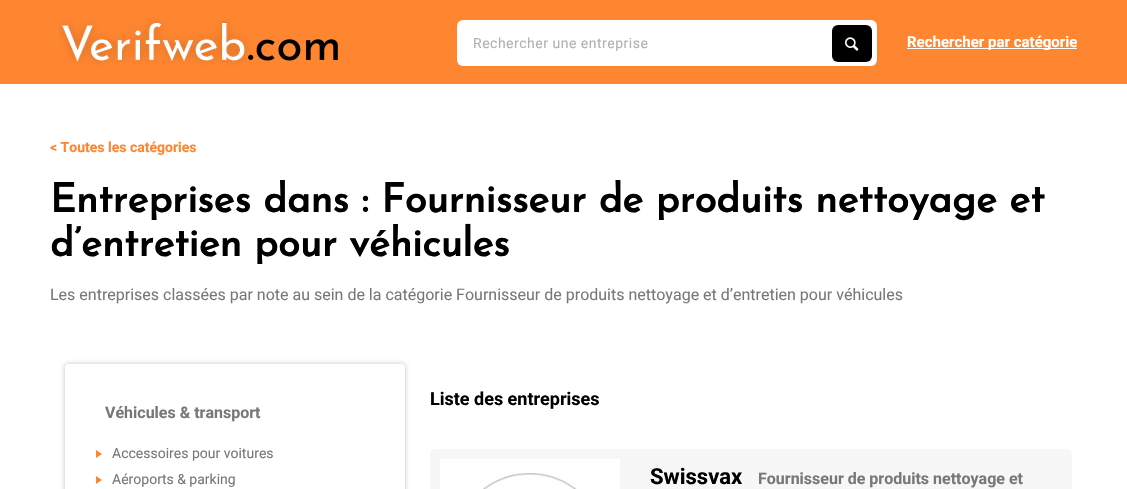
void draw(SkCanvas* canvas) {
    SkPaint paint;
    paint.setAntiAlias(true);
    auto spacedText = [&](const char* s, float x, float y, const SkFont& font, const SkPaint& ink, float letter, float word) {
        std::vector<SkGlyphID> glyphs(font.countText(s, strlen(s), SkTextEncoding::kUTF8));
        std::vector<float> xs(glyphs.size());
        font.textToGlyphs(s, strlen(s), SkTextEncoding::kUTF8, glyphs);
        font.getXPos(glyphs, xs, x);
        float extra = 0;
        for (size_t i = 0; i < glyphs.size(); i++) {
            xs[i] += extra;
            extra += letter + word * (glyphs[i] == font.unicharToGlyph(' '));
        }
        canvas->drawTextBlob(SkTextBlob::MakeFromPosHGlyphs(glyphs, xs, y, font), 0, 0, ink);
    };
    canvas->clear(0xFFFFFFFF);
    paint.setColor(0xFFFF8630);
    canvas->drawRect(SkRect::MakeXYWH(0, 0, 1127, 84), paint);
    canvas->drawImageRect(SkImages::DeferredFromEncodedData(SkData::MakeFromFileName("img1.png")), SkRect::MakeXYWH(59, 19, 279, 46), SkSamplingOptions());
    paint.setColor(0xFFFFFFFF);
    canvas->drawRoundRect(SkRect::MakeXYWH(457, 20, 420, 46), 6, 6, paint);
    SkFont font1(fontMgr->matchFamilyStyle("Roboto", SkFontStyle::Normal()), 14);
    font1.setSubpixel(true);
    paint.setColor(0xFFB1B1B1);
    spacedText("Rechercher une entreprise", 473, 48, font1, paint, 0.5f, 0);
    paint.setColor(0xFF000000);
    canvas->drawRoundRect(SkRect::MakeXYWH(832, 25, 40, 37), 6, 6, paint);
    canvas->drawImageRect(SkImages::DeferredFromEncodedData(SkData::MakeFromFileName("img2.png")), SkRect::MakeXYWH(845, 37, 14, 14), SkSamplingOptions());
    paint.setColor(0xFFFFFFFF);
    canvas->drawRect(SkRect::MakeXYWH(907, 48, 170, 1), paint);
    SkFont font2(fontMgr->matchFamilyStyle("Roboto", SkFontStyle::Bold()), 15);
    font2.setSubpixel(true);
    canvas->drawString("Rechercher par catégorie", 907, 47, font2, paint);
    SkFont font3(fontMgr->matchFamilyStyle("Roboto", SkFontStyle::Bold()), 14);
    font3.setSubpixel(true);
    paint.setColor(0xFFFF8630);
    canvas->drawString("< Toutes les catégories", 50, 152, font3, paint);
    SkFont font4(fontMgr->matchFamilyStyle("Josefin Sans", SkFontStyle::Bold()), 40);
    font4.setSubpixel(true);
    paint.setColor(0xFF000000);
    canvas->drawString("Entreprises dans : Fournisseur de produits nettoyage et", 50, 212, font4, paint);
    canvas->drawString("d’entretien pour véhicules", 50, 256, font4, paint);
    SkFont font5(fontMgr->matchFamilyStyle("Roboto", SkFontStyle::Normal()), 16);
    font5.setSubpixel(true);
    paint.setColor(0xFF787878);
    canvas->drawString("Les entreprises classées par note au sein de la catégorie Fournisseur de produits nettoyage et d’entretien pour véhicules", 50, 300, font5, paint);
    canvas->save();
    canvas->clipPath(SkPathBuilder(SkPathFillType::kEvenOdd).moveTo(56, 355).lineTo(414, 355).lineTo(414, 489).lineTo(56, 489).close().moveTo(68, 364).lineTo(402, 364).cubicTo(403.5f, 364, 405, 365.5f, 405, 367).lineTo(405, 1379).cubicTo(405, 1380.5f, 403.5f, 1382, 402, 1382).lineTo(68, 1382).cubicTo(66.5f, 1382, 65, 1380.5f, 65, 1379).lineTo(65, 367).cubicTo(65, 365.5f, 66.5f, 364, 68, 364).close().detach(), true);
    paint.setColor(0x40000000);
    paint.setMaskFilter(SkMaskFilter::MakeBlur(kNormal_SkBlurStyle, 2.5f));
    canvas->drawRoundRect(SkRect::MakeXYWH(65, 364, 340, 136), 3, 3, paint);
    paint.setMaskFilter(nullptr);
    canvas->restore();
    SkFont font6(fontMgr->matchFamilyStyle("Roboto", SkFontStyle::Bold()), 16);
    font6.setSubpixel(true);
    paint.setColor(0xFF787878);
    canvas->drawString("Véhicules & transport", 105, 418, font6, paint);
    paint.setColor(0xFFFF8630);
    canvas->drawPath(SkPathBuilder().moveTo(96, 458).lineTo(96, 450).lineTo(102, 454).close().moveTo(96, 484).lineTo(96, 476).lineTo(102, 480).close().detach(), paint);
    paint.setColor(0xFF787878);
    canvas->drawString("Accessoires pour voitures", 112, 458, font1, paint);
    canvas->drawString("Aéroports & parking", 112, 484, font1, paint);
    SkFont font7(fontMgr->matchFamilyStyle("Roboto", SkFontStyle::Bold()), 18);
    font7.setSubpixel(true);
    paint.setColor(0xFF000000);
    canvas->drawString("Liste des entreprises", 430, 405, font7, paint);
    paint.setColor(0xFFF7F7F7);
    canvas->drawRoundRect(SkRect::MakeXYWH(430, 449, 642, 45), 5, 5, paint);
    paint.setColor(0xFFFFFFFF);
    canvas->drawRect(SkRect::MakeXYWH(440, 459, 180, 30), paint);
    canvas->drawImageRect(SkImages::DeferredFromEncodedData(SkData::MakeFromFileName("img3.png")), SkRect::MakeXYWH(483, 473, 94, 16), SkSamplingOptions());
    SkFont font8(fontMgr->matchFamilyStyle("Roboto", SkFontStyle::Bold()), 22);
    font8.setSubpixel(true);
    paint.setColor(0xFF000000);
    canvas->drawString("Swissvax", 650, 484, font8, paint);
    paint.setColor(0xFF787878);
    canvas->drawString("Fournisseur de produits nettoyage et", 758, 484, font6, paint);
}
